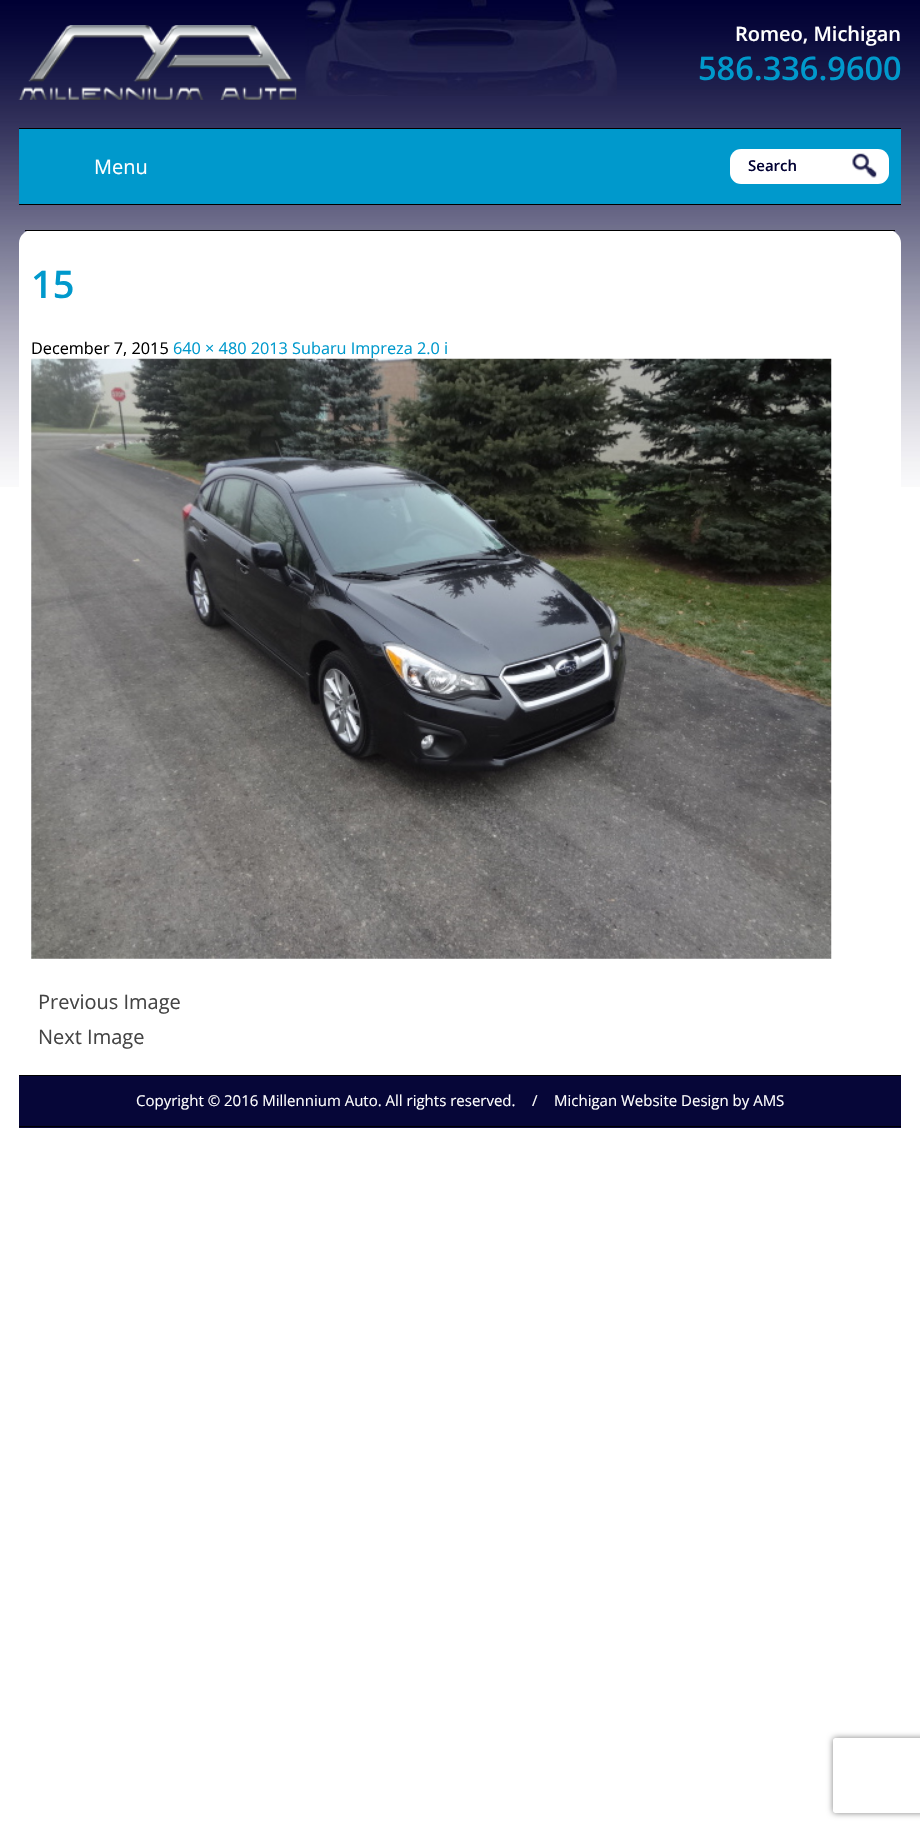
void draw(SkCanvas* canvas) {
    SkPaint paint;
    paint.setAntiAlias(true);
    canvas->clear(0xFFFFFFFF);
    canvas->drawImageRect(SkImages::DeferredFromEncodedData(SkData::MakeFromFileName("img1.png")), SkRect::MakeXYWH(0, 0, 920, 487), SkSamplingOptions());
    canvas->drawImageRect(SkImages::DeferredFromEncodedData(SkData::MakeFromFileName("img2.png")), SkRect::MakeXYWH(305, 0, 312, 96), SkSamplingOptions());
    canvas->drawImageRect(SkImages::DeferredFromEncodedData(SkData::MakeFromFileName("img3.png")), SkRect::MakeXYWH(18, 25, 279, 75), SkSamplingOptions());
    SkFont font1(fontMgr->matchFamilyStyle("Open Sans", SkFontStyle(600, SkFontStyle::kNormal_Width, SkFontStyle::kUpright_Slant)), 20);
    font1.setSubpixel(true);
    paint.setColor(0xFFFFFFFF);
    canvas->drawString("Romeo, Michigan", 735, 41, font1, paint);
    SkFont font2(fontMgr->matchFamilyStyle("Open Sans", SkFontStyle(600, SkFontStyle::kNormal_Width, SkFontStyle::kUpright_Slant)), 32.5f);
    font2.setSubpixel(true);
    paint.setColor(0xFF0099CC);
    canvas->drawString("586.336.9600", 698, 80, font2, paint);
    canvas->drawRect(SkRect::MakeXYWH(19, 129, 882, 75), paint);
    paint.setColor(0xFF000000);
    canvas->drawRect(SkRect::MakeXYWH(19, 128, 882, 1), paint);
    canvas->drawRect(SkRect::MakeXYWH(19, 204, 882, 1), paint);
    SkFont font3(fontMgr->matchFamilyStyle("Open Sans", SkFontStyle::Normal()), 20);
    font3.setSubpixel(true);
    paint.setColor(0xFFFFFFFF);
    canvas->drawString("Menu", 94, 174, font3, paint);
    canvas->drawRoundRect(SkRect::MakeXYWH(730, 149, 159, 35), 11, 11, paint);
    SkFont font4(fontMgr->matchFamilyStyle("Open Sans", SkFontStyle(600, SkFontStyle::kNormal_Width, SkFontStyle::kUpright_Slant)), 15);
    font4.setSubpixel(true);
    paint.setColor(0xFF000033);
    canvas->drawString("Search", 748, 171, font4, paint);
    canvas->drawImageRect(SkImages::DeferredFromEncodedData(SkData::MakeFromFileName("img4.png")), SkRect::MakeXYWH(852, 153, 25, 25), SkSamplingOptions());
    paint.setColor(0xFFFFFFFF);
    canvas->drawPath(SkPathBuilder().moveTo(32, 230).lineTo(888, 230).cubicTo(895, 230, 901, 236, 901, 243).lineTo(901, 1075).lineTo(19, 1075).lineTo(19, 243).cubicTo(19, 236, 25, 230, 32, 230).close().detach(), paint);
    paint.setColor(0xFF000000);
    canvas->drawRect(SkRect::MakeXYWH(25, 230, 870, 1), paint);
    SkFont font5(fontMgr->matchFamilyStyle("Open Sans", SkFontStyle(600, SkFontStyle::kNormal_Width, SkFontStyle::kUpright_Slant)), 38);
    font5.setSubpixel(true);
    paint.setColor(0xFF0099CC);
    canvas->drawString("15", 31, 298, font5, paint);
    SkFont font6(fontMgr->matchFamilyStyle("Open Sans", SkFontStyle::Normal()), 16.25f);
    font6.setSubpixel(true);
    paint.setColor(0xFF000000);
    canvas->drawString("December 7, 2015", 31, 354, font6, paint);
    paint.setColor(0xFF0099CC);
    canvas->drawString("640 × 480 2013 Subaru Impreza 2.0 i", 173, 354, font6, paint);
    canvas->drawImageRect(SkImages::DeferredFromEncodedData(SkData::MakeFromFileName("img5.png")), SkRect::MakeXYWH(31, 358, 801, 601), SkSamplingOptions());
    paint.setColor(0xFF444444);
    canvas->drawString("Previous Image", 38, 1009, font3, paint);
    canvas->drawString("Next Image", 38, 1044, font3, paint);
    paint.setColor(0xFF060638);
    canvas->drawRect(SkRect::MakeXYWH(19, 1076, 882, 52), paint);
    paint.setColor(0xFF000000);
    canvas->drawRect(SkRect::MakeXYWH(19, 1075, 882, 1), paint);
    canvas->drawRect(SkRect::MakeXYWH(19, 1126, 882, 1), paint);
    SkFont font7(fontMgr->matchFamilyStyle("Open Sans", SkFontStyle::Normal()), 15);
    font7.setSubpixel(true);
    paint.setColor(0xFFFFFFFF);
    canvas->drawString("Copyright © 2016 Millennium Auto. All rights reserved.", 136, 1106, font7, paint);
    canvas->drawString("/", 532, 1106, font7, paint);
    canvas->drawString("Michigan Website Design by AMS", 554, 1106, font7, paint);
    canvas->save();
    canvas->clipPath(SkPathBuilder(SkPathFillType::kEvenOdd).moveTo(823, 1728).lineTo(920, 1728).lineTo(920, 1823).lineTo(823, 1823).close().moveTo(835.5f, 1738).lineTo(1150.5f, 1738).cubicTo(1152, 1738, 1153, 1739, 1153, 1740.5f).lineTo(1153, 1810.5f).cubicTo(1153, 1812, 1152, 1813, 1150.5f, 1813).lineTo(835.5f, 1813).cubicTo(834, 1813, 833, 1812, 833, 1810.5f).lineTo(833, 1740.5f).cubicTo(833, 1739, 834, 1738, 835.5f, 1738).close().detach(), true);
    paint.setColor(0xFF808080);
    paint.setMaskFilter(SkMaskFilter::MakeBlur(kNormal_SkBlurStyle, 3));
    canvas->drawRoundRect(SkRect::MakeXYWH(833, 1738, 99, 75), 2.5f, 2.5f, paint);
    paint.setMaskFilter(nullptr);
    canvas->restore();
}
